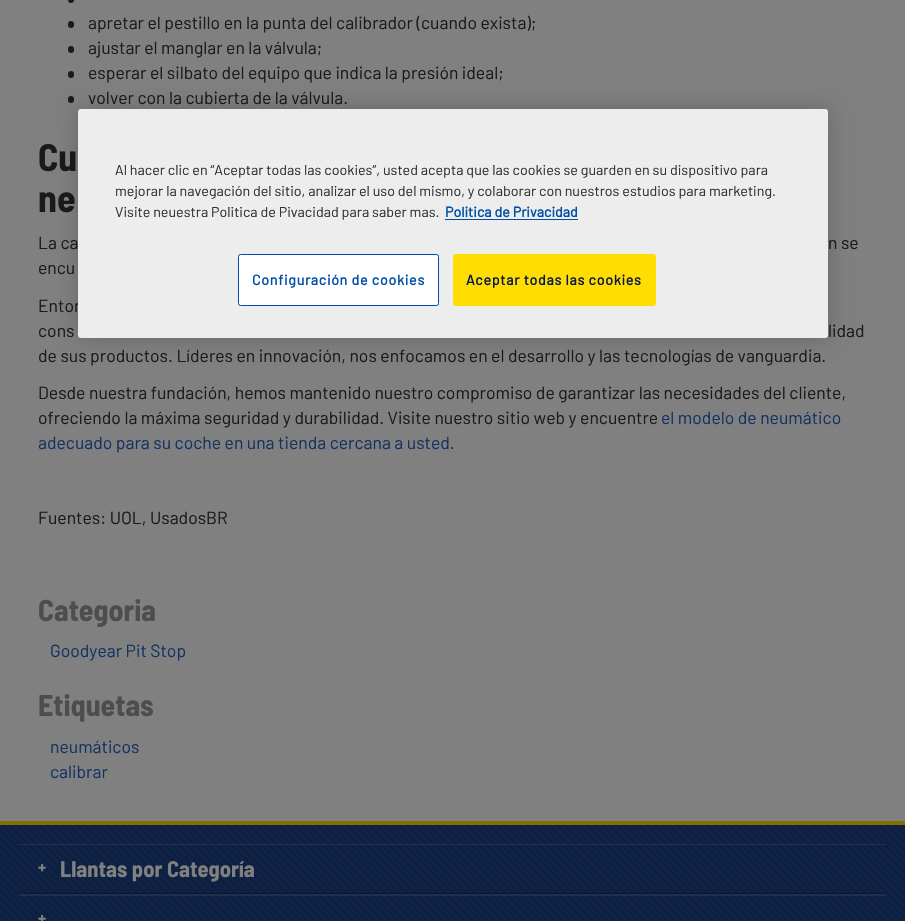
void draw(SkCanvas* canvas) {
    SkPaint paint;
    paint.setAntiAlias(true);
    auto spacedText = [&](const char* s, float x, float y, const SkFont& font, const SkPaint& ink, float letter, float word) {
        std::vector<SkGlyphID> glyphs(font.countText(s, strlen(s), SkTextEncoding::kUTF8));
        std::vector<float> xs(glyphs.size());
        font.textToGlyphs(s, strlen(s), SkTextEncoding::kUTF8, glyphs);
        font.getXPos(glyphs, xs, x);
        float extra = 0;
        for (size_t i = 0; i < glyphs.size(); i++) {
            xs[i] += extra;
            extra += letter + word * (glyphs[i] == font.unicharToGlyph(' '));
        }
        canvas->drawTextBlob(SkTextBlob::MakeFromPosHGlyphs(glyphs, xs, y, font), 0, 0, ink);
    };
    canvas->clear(0xFF808080);
    paint.setColor(0xFF1A1A1A);
    canvas->drawCircle(71, 0, 3, paint);
    canvas->drawRoundRect(SkRect::MakeXYWH(68, 21, 6, 7), 3, 3, paint);
    SkFont font1(fontMgr->matchFamilyStyle("Barlow", SkFontStyle::Normal()), 17.5f);
    font1.setSubpixel(true);
    canvas->drawString("apretar el pestillo en la punta del calibrador (cuando exista);", 88, 29, font1, paint);
    canvas->drawRoundRect(SkRect::MakeXYWH(68, 46, 6, 7), 3, 3, paint);
    canvas->drawString("ajustar el manglar en la válvula;", 88, 54, font1, paint);
    canvas->drawRoundRect(SkRect::MakeXYWH(68, 71, 6, 7), 3, 3, paint);
    canvas->drawString("esperar el silbato del equipo que indica la presión ideal;", 88, 79, font1, paint);
    canvas->drawRoundRect(SkRect::MakeXYWH(68, 96, 6, 7), 3, 3, paint);
    canvas->drawString("volver con la cubierta de la válvula.", 88, 104, font1, paint);
    SkFont font2(fontMgr->matchFamilyStyle("Barlow Semi Condensed", SkFontStyle::Bold()), 38);
    font2.setSubpixel(true);
    canvas->drawString("Cu", 38, 171, font2, paint);
    canvas->drawString("ne", 38, 212, font2, paint);
    canvas->drawString("La ca", 38, 249, font1, paint);
    canvas->drawString("n se", 828, 249, font1, paint);
    canvas->drawString("encu", 38, 274, font1, paint);
    canvas->drawString("Enton", 38, 312, font1, paint);
    canvas->drawString("cons", 38, 337, font1, paint);
    canvas->drawString("lidad", 828, 337, font1, paint);
    canvas->drawString("de sus productos. Líderes en innovación, nos enfocamos en el desarrollo y las tecnologías de vanguardia.", 38, 362, font1, paint);
    canvas->drawString("Desde nuestra fundación, hemos mantenido nuestro compromiso de garantizar las necesidades del cliente,", 38, 399, font1, paint);
    canvas->drawString("ofreciendo la máxima seguridad y durabilidad. Visite nuestro sitio web y encuentre", 38, 424, font1, paint);
    paint.setColor(0xFF123361);
    canvas->drawString("el modelo de neumático", 661, 424, font1, paint);
    canvas->drawString("adecuado para su coche en una tienda cercana a usted.", 38, 449, font1, paint);
    paint.setColor(0xFF1A1A1A);
    canvas->drawString("Fuentes: UOL, UsadosBR", 38, 524, font1, paint);
    SkFont font3(fontMgr->matchFamilyStyle("Barlow Semi Condensed", SkFontStyle::Bold()), 30);
    font3.setSubpixel(true);
    paint.setColor(0xFF4D4D4D);
    canvas->drawString("Categoria", 38, 621, font3, paint);
    paint.setColor(0xFF123361);
    canvas->drawString("Goodyear Pit Stop", 50, 657, font1, paint);
    paint.setColor(0xFF4D4D4D);
    canvas->drawString("Etiquetas", 38, 716, font3, paint);
    paint.setColor(0xFF123361);
    canvas->drawString("neumáticos", 50, 753, font1, paint);
    canvas->drawString("calibrar", 50, 778, font1, paint);
    paint.setColor(0x33000000);
    paint.setMaskFilter(SkMaskFilter::MakeBlur(kNormal_SkBlurStyle, 11));
    canvas->drawRoundRect(SkRect::MakeXYWH(78, 109, 750, 229), 3, 3, paint);
    paint.setMaskFilter(nullptr);
    paint.setColor(0xFFEDEDED);
    canvas->drawRoundRect(SkRect::MakeXYWH(78, 109, 750, 229), 3, 3, paint);
    SkFont font4(fontMgr->matchFamilyStyle("Barlow", SkFontStyle::Normal()), 14.25f);
    font4.setSubpixel(true);
    paint.setColor(0xFF333333);
    canvas->drawString("Al hacer clic en “Aceptar todas las cookies”, usted acepta que las cookies se guarden en su dispositivo para", 115, 175, font4, paint);
    canvas->drawString("mejorar la navegación del sitio, analizar el uso del mismo, y colaborar con nuestros estudios para marketing.", 115, 196, font4, paint);
    canvas->drawString("Visite neuestra Politica de Pivacidad para saber mas.", 115, 217, font4, paint);
    SkFont font5(fontMgr->matchFamilyStyle("Barlow", SkFontStyle::Bold()), 14.25f);
    font5.setSubpixel(true);
    paint.setColor(0xFF004EA8);
    canvas->drawString("Politica de Privacidad", 445, 217, font5, paint);
    canvas->drawRect(SkRect::MakeXYWH(445, 219, 133, 1), paint);
    paint.setColor(0xFFFFFFFF);
    canvas->drawRoundRect(SkRect::MakeXYWH(238.5f, 254.5f, 200, 51), 2, 2, paint);
    paint.setStyle(SkPaint::kStroke_Style);
    paint.setStrokeWidth(1);
    paint.setColor(0xFF004EA8);
    canvas->drawRoundRect(SkRect::MakeXYWH(238.5f, 254.5f, 200, 51), 2, 2, paint);
    paint.setStyle(SkPaint::kFill_Style);
    spacedText("Configuración de cookies", 252, 285, font5, paint, 0.7f, 0);
    paint.setColor(0xFFFFDD00);
    canvas->drawRoundRect(SkRect::MakeXYWH(453.5f, 254.5f, 202, 51), 2, 2, paint);
    paint.setStyle(SkPaint::kStroke_Style);
    canvas->drawRoundRect(SkRect::MakeXYWH(453.5f, 254.5f, 202, 51), 2, 2, paint);
    paint.setStyle(SkPaint::kFill_Style);
    paint.setColor(0xFF06184A);
    spacedText("Aceptar todas las cookies", 466, 285, font5, paint, 0.7f, 0);
    paint.setColor(0xFF0F2347);
    canvas->drawRect(SkRect::MakeXYWH(0, 825, 905, 96), paint);
    canvas->drawImageRect(SkImages::DeferredFromEncodedData(SkData::MakeFromFileName("img1.png")), SkRect::MakeXYWH(0, 825, 905, 96), SkSamplingOptions());
    paint.setColor(0xFF806F00);
    canvas->drawRect(SkRect::MakeXYWH(0, 821, 905, 4), paint);
    paint.setColor(0x26808080);
    canvas->drawRect(SkRect::MakeXYWH(19, 894, 867, 1), paint);
    canvas->drawRect(SkRect::MakeXYWH(19, 844, 867, 1), paint);
    paint.setColor(0xFF0D1835);
    canvas->drawRect(SkRect::MakeXYWH(19, 893, 867, 1), paint);
    SkFont font6(fontMgr->matchFamilyStyle("Barlow Semi Condensed", SkFontStyle::Bold()), 17.5f);
    font6.setSubpixel(true);
    paint.setColor(0xFF808080);
    canvas->drawString("+", 38, 873, font6, paint);
    SkFont font7(fontMgr->matchFamilyStyle("Barlow Semi Condensed", SkFontStyle::Bold()), 22.5f);
    font7.setSubpixel(true);
    canvas->drawString("Llantas por Categoría", 60, 877, font7, paint);
    paint.setColor(0x26808080);
    canvas->drawRect(SkRect::MakeXYWH(19, 895, 867, 1), paint);
    paint.setColor(0xFF808080);
    canvas->drawString("+", 38, 924, font6, paint);
}
